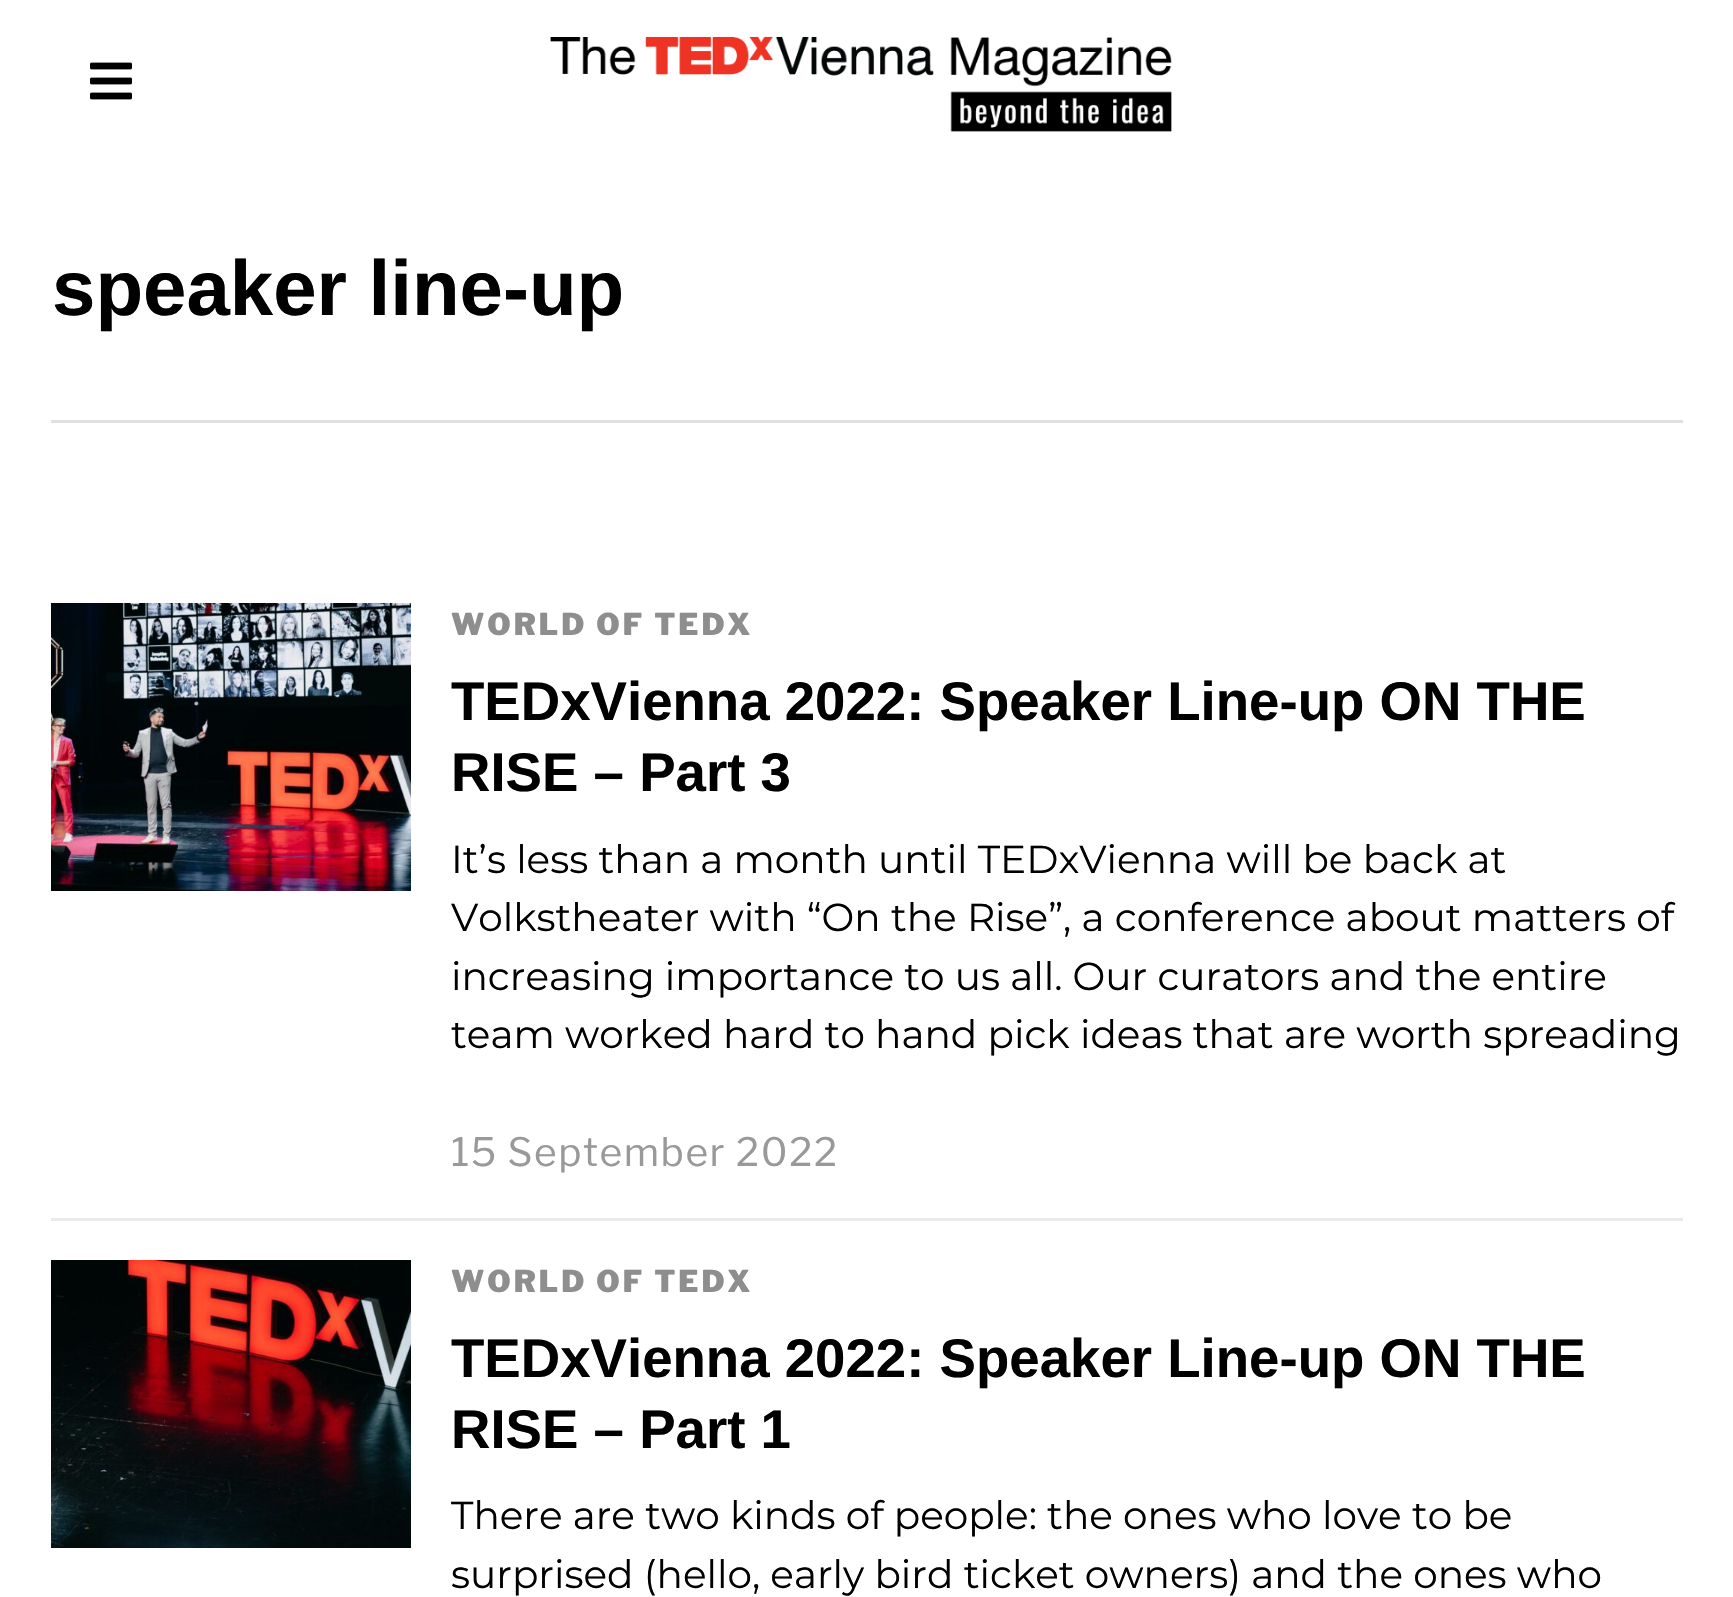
void draw(SkCanvas* canvas) {
    SkPaint paint;
    paint.setAntiAlias(true);
    auto spacedText = [&](const char* s, float x, float y, const SkFont& font, const SkPaint& ink, float letter, float word) {
        std::vector<SkGlyphID> glyphs(font.countText(s, strlen(s), SkTextEncoding::kUTF8));
        std::vector<float> xs(glyphs.size());
        font.textToGlyphs(s, strlen(s), SkTextEncoding::kUTF8, glyphs);
        font.getXPos(glyphs, xs, x);
        float extra = 0;
        for (size_t i = 0; i < glyphs.size(); i++) {
            xs[i] += extra;
            extra += letter + word * (glyphs[i] == font.unicharToGlyph(' '));
        }
        canvas->drawTextBlob(SkTextBlob::MakeFromPosHGlyphs(glyphs, xs, y, font), 0, 0, ink);
    };
    canvas->clear(0xFFFFFFFF);
    canvas->drawImageRect(SkImages::DeferredFromEncodedData(SkData::MakeFromFileName("img1.png")), SkRect::MakeXYWH(90, 62, 42, 38), SkSamplingOptions());
    canvas->drawImageRect(SkImages::DeferredFromEncodedData(SkData::MakeFromFileName("img2.png")), SkRect::MakeXYWH(550, 36, 622, 96), SkSamplingOptions());
    paint.setColor(0xFFE0E0E0);
    canvas->drawRect(SkRect::MakeXYWH(51, 420, 1632, 3), paint);
    SkFont font1(fontMgr->matchFamilyStyle("Liberation Sans", SkFontStyle::Bold()), 78);
    font1.setSubpixel(true);
    paint.setColor(0xFF000000);
    canvas->drawString("speaker line-up", 52, 315, font1, paint);
    canvas->drawImageRect(SkImages::DeferredFromEncodedData(SkData::MakeFromFileName("img3.png")), SkRect::MakeXYWH(51, 603, 360, 288), SkSamplingOptions());
    SkFont font2(fontMgr->matchFamilyStyle("Libre Franklin", SkFontStyle(900, SkFontStyle::kNormal_Width, SkFontStyle::kUpright_Slant)), 30);
    font2.setSubpixel(true);
    paint.setColor(0xFF8E8E8E);
    spacedText("WORLD OF TEDX", 451, 635, font2, paint, 3, 0);
    SkFont font3(fontMgr->matchFamilyStyle("Liberation Sans", SkFontStyle::Bold()), 54.6f);
    font3.setSubpixel(true);
    paint.setColor(0xFF000000);
    canvas->drawString("TEDxVienna 2022: Speaker Line-up ON THE", 451, 720, font3, paint);
    canvas->drawString("RISE – Part 3", 451, 791, font3, paint);
    SkFont font4(fontMgr->matchFamilyStyle("Montserrat", SkFontStyle(100, SkFontStyle::kNormal_Width, SkFontStyle::kUpright_Slant)), 39);
    font4.setSubpixel(true);
    canvas->drawString("It’s less than a month until TEDxVienna will be back at", 451, 873, font4, paint);
    canvas->drawString("Volkstheater with “On the Rise”, a conference about matters of", 451, 931, font4, paint);
    canvas->drawString("increasing importance to us all. Our curators and the entire", 451, 990, font4, paint);
    canvas->drawString("team worked hard to hand pick ideas that are worth spreading", 451, 1048, font4, paint);
    SkFont font5(fontMgr->matchFamilyStyle("Libre Franklin", SkFontStyle::Normal()), 39);
    font5.setSubpixel(true);
    paint.setColor(0xFF999999);
    spacedText("15 September 2022", 451, 1166, font5, paint, 1.5f, 0);
    paint.setColor(0xFFEAEAEA);
    canvas->drawRect(SkRect::MakeXYWH(51, 1218, 1632, 3), paint);
    canvas->drawImageRect(SkImages::DeferredFromEncodedData(SkData::MakeFromFileName("img4.png")), SkRect::MakeXYWH(51, 1260, 360, 288), SkSamplingOptions());
    paint.setColor(0xFF8E8E8E);
    spacedText("WORLD OF TEDX", 451, 1292, font2, paint, 3, 0);
    paint.setColor(0xFF000000);
    canvas->drawString("TEDxVienna 2022: Speaker Line-up ON THE", 451, 1377, font3, paint);
    canvas->drawString("RISE – Part 1", 451, 1448, font3, paint);
    canvas->drawString("There are two kinds of people: the ones who love to be", 451, 1529, font4, paint);
    canvas->drawString("surprised (hello, early bird ticket owners) and the ones who", 451, 1588, font4, paint);
}
